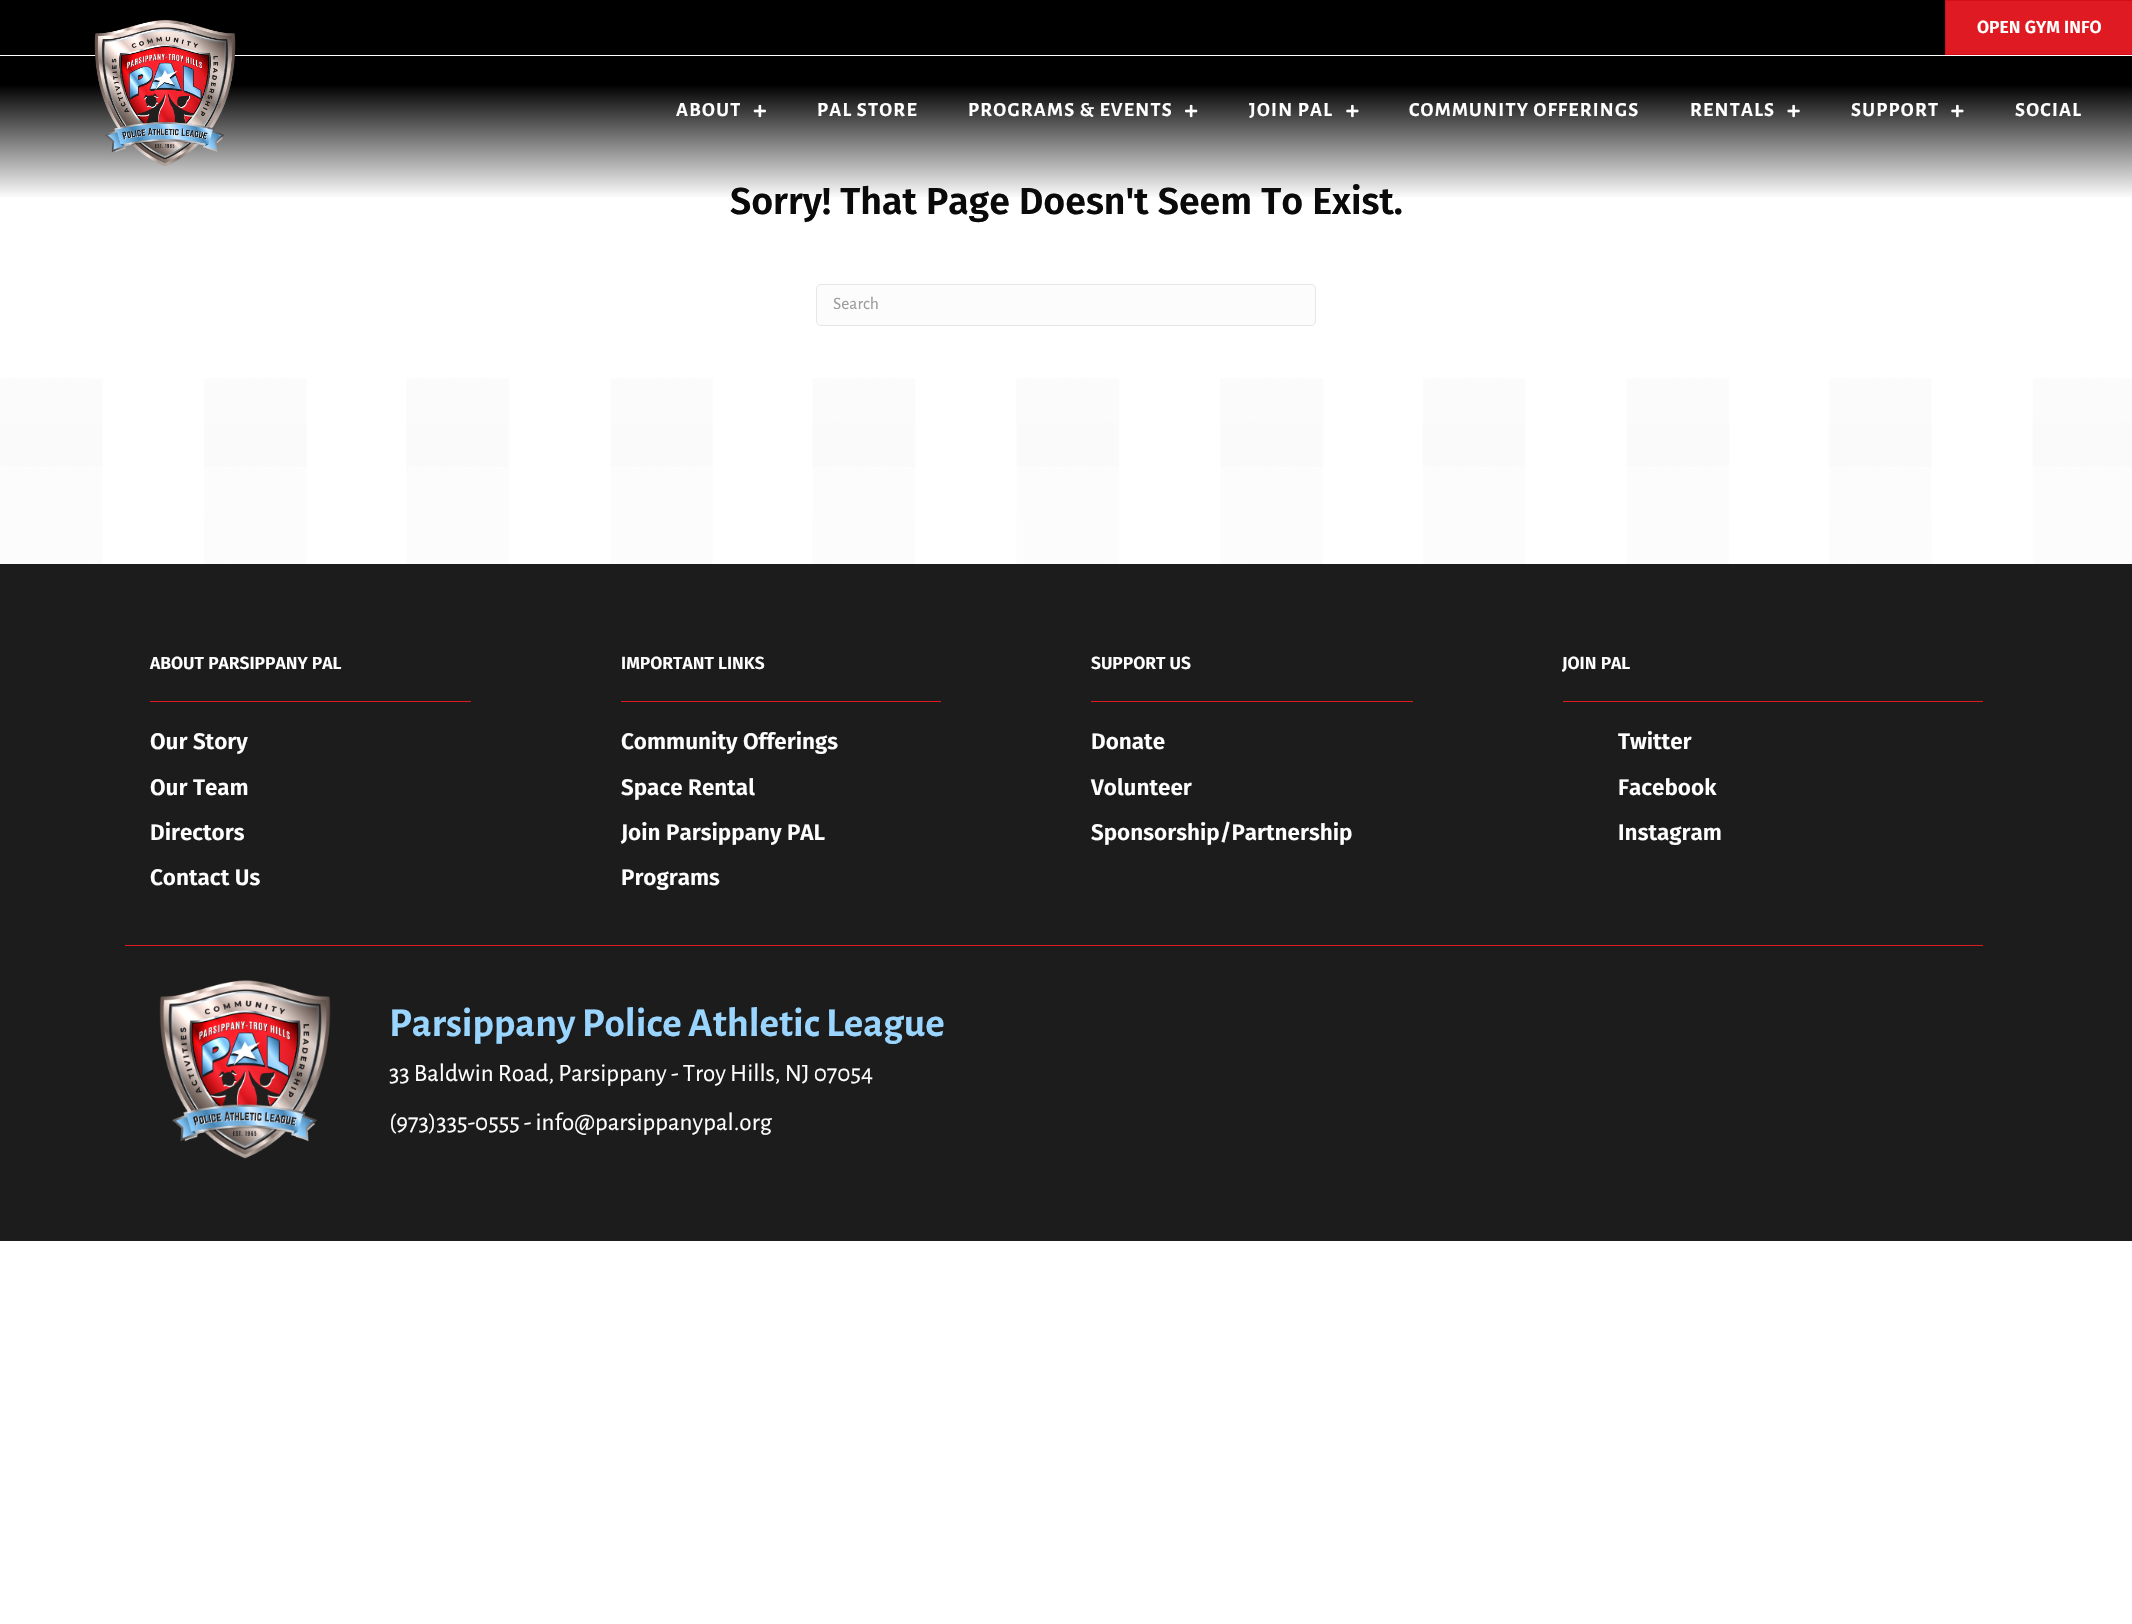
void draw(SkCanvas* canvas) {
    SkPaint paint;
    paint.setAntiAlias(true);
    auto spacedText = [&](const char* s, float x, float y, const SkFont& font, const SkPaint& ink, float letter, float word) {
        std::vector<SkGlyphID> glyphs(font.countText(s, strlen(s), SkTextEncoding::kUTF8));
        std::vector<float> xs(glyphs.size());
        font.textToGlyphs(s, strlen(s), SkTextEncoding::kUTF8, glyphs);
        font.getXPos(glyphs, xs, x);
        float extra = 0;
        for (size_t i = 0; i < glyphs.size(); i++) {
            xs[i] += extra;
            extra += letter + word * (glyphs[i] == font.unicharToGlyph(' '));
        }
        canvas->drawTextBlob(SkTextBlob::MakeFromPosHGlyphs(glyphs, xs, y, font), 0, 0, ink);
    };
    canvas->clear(0xFFFFFFFF);
    canvas->drawImageRect(SkImages::DeferredFromEncodedData(SkData::MakeFromFileName("img1.png")), SkRect::MakeXYWH(0, 378, 2132, 186), SkSamplingOptions());
    paint.setColor(0xFF000000);
    canvas->drawRect(SkRect::MakeXYWH(0, 0, 1945, 55), paint);
    paint.setColor(0xFFE01A22);
    canvas->drawRect(SkRect::MakeXYWH(1945.5f, 0.5f, 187, 54), paint);
    paint.setStyle(SkPaint::kStroke_Style);
    paint.setStrokeWidth(1);
    paint.setColor(0xFFD40E16);
    canvas->drawRect(SkRect::MakeXYWH(1945.5f, 0.5f, 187, 54), paint);
    SkFont font1(fontMgr->matchFamilyStyle("Fira Sans", SkFontStyle(600, SkFontStyle::kNormal_Width, SkFontStyle::kUpright_Slant)), 17.5f);
    font1.setSubpixel(true);
    paint.setStyle(SkPaint::kFill_Style);
    paint.setColor(0xFFFFFFFF);
    canvas->drawString("OPEN GYM INFO", 1977, 33, font1, paint);
    SkFont font2(fontMgr->matchFamilyStyle("Fira Sans", SkFontStyle(600, SkFontStyle::kNormal_Width, SkFontStyle::kUpright_Slant)), 37.5f);
    font2.setSubpixel(true);
    paint.setColor(0xFF0A0A0A);
    canvas->drawString("Sorry! That Page Doesn't Seem To Exist.", 730, 214, font2, paint);
    {
        const SkColor colors[] = {0xFF000000, 0x00000000};
        const float stops[] = {0.2f, 1};
        const SkPoint ends[] = {{1066, 56}, {1066, 199}};
        paint.setShader(SkGradientShader::MakeLinear(ends, colors, stops, 2, SkTileMode::kClamp));
        paint.setAlpha(255);
    }
    canvas->drawRect(SkRect::MakeXYWH(0, 56, 2132, 141), paint);
    canvas->drawImageRect(SkImages::DeferredFromEncodedData(SkData::MakeFromFileName("img2.png")), SkRect::MakeXYWH(94, 20, 142, 146), SkSamplingOptions());
    SkFont font3(fontMgr->matchFamilyStyle("Alegreya Sans", SkFontStyle::Bold()), 20);
    font3.setSubpixel(true);
    paint.setShader(nullptr);
    paint.setColor(0xFFFFFFFF);
    spacedText("ABOUT", 676, 116, font3, paint, 1.25f, 0);
    canvas->drawImageRect(SkImages::DeferredFromEncodedData(SkData::MakeFromFileName("img3.png")), SkRect::MakeXYWH(753, 104, 13, 14), SkSamplingOptions());
    spacedText("PAL STORE", 817, 116, font3, paint, 1.25f, 0);
    spacedText("PROGRAMS & EVENTS", 968, 116, font3, paint, 1.25f, 0);
    canvas->drawImageRect(SkImages::DeferredFromEncodedData(SkData::MakeFromFileName("img4.png")), SkRect::MakeXYWH(1185, 104, 13, 14), SkSamplingOptions());
    spacedText("JOIN PAL", 1249, 116, font3, paint, 1.25f, 0);
    canvas->drawImageRect(SkImages::DeferredFromEncodedData(SkData::MakeFromFileName("img5.png")), SkRect::MakeXYWH(1346, 104, 13, 14), SkSamplingOptions());
    spacedText("COMMUNITY OFFERINGS", 1409, 116, font3, paint, 1.25f, 0);
    spacedText("RENTALS", 1690, 116, font3, paint, 1.25f, 0);
    canvas->drawImageRect(SkImages::DeferredFromEncodedData(SkData::MakeFromFileName("img6.png")), SkRect::MakeXYWH(1787, 104, 13, 14), SkSamplingOptions());
    spacedText("SUPPORT", 1851, 116, font3, paint, 1.25f, 0);
    canvas->drawImageRect(SkImages::DeferredFromEncodedData(SkData::MakeFromFileName("img5.png")), SkRect::MakeXYWH(1951, 104, 13, 14), SkSamplingOptions());
    spacedText("SOCIAL", 2015, 116, font3, paint, 1.25f, 0);
    paint.setColor(0x80FFFFFF);
    canvas->drawRect(SkRect::MakeXYWH(0, 467, 2132, 97), paint);
    paint.setColor(0xFFFCFCFC);
    canvas->drawRoundRect(SkRect::MakeXYWH(816.5f, 284.5f, 499, 41), 4.5f, 4.5f, paint);
    paint.setStyle(SkPaint::kStroke_Style);
    paint.setColor(0xFFE6E6E6);
    canvas->drawRoundRect(SkRect::MakeXYWH(816.5f, 284.5f, 499, 41), 4.5f, 4.5f, paint);
    SkFont font4(fontMgr->matchFamilyStyle("Alegreya Sans", SkFontStyle::Normal()), 17.5f);
    font4.setSubpixel(true);
    paint.setStyle(SkPaint::kFill_Style);
    paint.setColor(0xFF9B9B9B);
    canvas->drawString("Search", 833, 309, font4, paint);
    paint.setColor(0xFF1C1C1C);
    canvas->drawRect(SkRect::MakeXYWH(0, 564, 2132, 677), paint);
    paint.setColor(0xFFFFFFFF);
    canvas->drawString("ABOUT PARSIPPANY PAL", 150, 669, font1, paint);
    paint.setColor(0xFFE01A22);
    canvas->drawRect(SkRect::MakeXYWH(150, 701, 321, 1), paint);
    SkFont font5(fontMgr->matchFamilyStyle("Fira Sans", SkFontStyle(600, SkFontStyle::kNormal_Width, SkFontStyle::kUpright_Slant)), 22.5f);
    font5.setSubpixel(true);
    paint.setColor(0xFFFFFFFF);
    canvas->drawString("Our Story", 150, 749, font5, paint);
    canvas->drawString("Our Team", 150, 795, font5, paint);
    canvas->drawString("Directors", 150, 840, font5, paint);
    canvas->drawString("Contact Us", 150, 885, font5, paint);
    canvas->drawString("IMPORTANT LINKS", 621, 669, font1, paint);
    paint.setColor(0xFFE01A22);
    canvas->drawRect(SkRect::MakeXYWH(621, 701, 320, 1), paint);
    paint.setColor(0xFFFFFFFF);
    canvas->drawString("Community Offerings", 621, 749, font5, paint);
    canvas->drawString("Space Rental", 621, 795, font5, paint);
    canvas->drawString("Join Parsippany PAL", 621, 840, font5, paint);
    canvas->drawString("Programs", 621, 885, font5, paint);
    canvas->drawString("SUPPORT US", 1091, 669, font1, paint);
    paint.setColor(0xFFE01A22);
    canvas->drawRect(SkRect::MakeXYWH(1091, 701, 322, 1), paint);
    paint.setColor(0xFFFFFFFF);
    canvas->drawString("Donate", 1091, 749, font5, paint);
    canvas->drawString("Volunteer", 1091, 795, font5, paint);
    canvas->drawString("Sponsorship/Partnership", 1091, 840, font5, paint);
    canvas->drawString("JOIN PAL", 1562, 669, font1, paint);
    paint.setColor(0xFFE01A22);
    canvas->drawRect(SkRect::MakeXYWH(1563, 701, 420, 1), paint);
    paint.setColor(0xFFFFFFFF);
    canvas->drawString("Twitter", 1618, 749, font5, paint);
    canvas->drawString("Facebook", 1618, 795, font5, paint);
    canvas->drawString("Instagram", 1618, 840, font5, paint);
    paint.setColor(0xFFE01A22);
    canvas->drawRect(SkRect::MakeXYWH(125, 945, 1858, 1), paint);
    canvas->drawImageRect(SkImages::DeferredFromEncodedData(SkData::MakeFromFileName("img7.png")), SkRect::MakeXYWH(159, 980, 172, 179), SkSamplingOptions());
    SkFont font6(fontMgr->matchFamilyStyle("Alegreya Sans", SkFontStyle::Bold()), 41.25f);
    font6.setSubpixel(true);
    paint.setColor(0xFF99D5FE);
    canvas->drawString("Parsippany Police Athletic League", 389, 1036, font6, paint);
    SkFont font7(fontMgr->matchFamilyStyle("Alegreya Sans", SkFontStyle::Normal()), 25);
    font7.setSubpixel(true);
    paint.setColor(0xFFFFFFFF);
    canvas->drawString("33 Baldwin Road, Parsippany - Troy Hills, NJ 07054", 389, 1081, font7, paint);
    canvas->drawString("(973)335-0555 - info@parsippanypal.org", 389, 1130, font7, paint);
}
